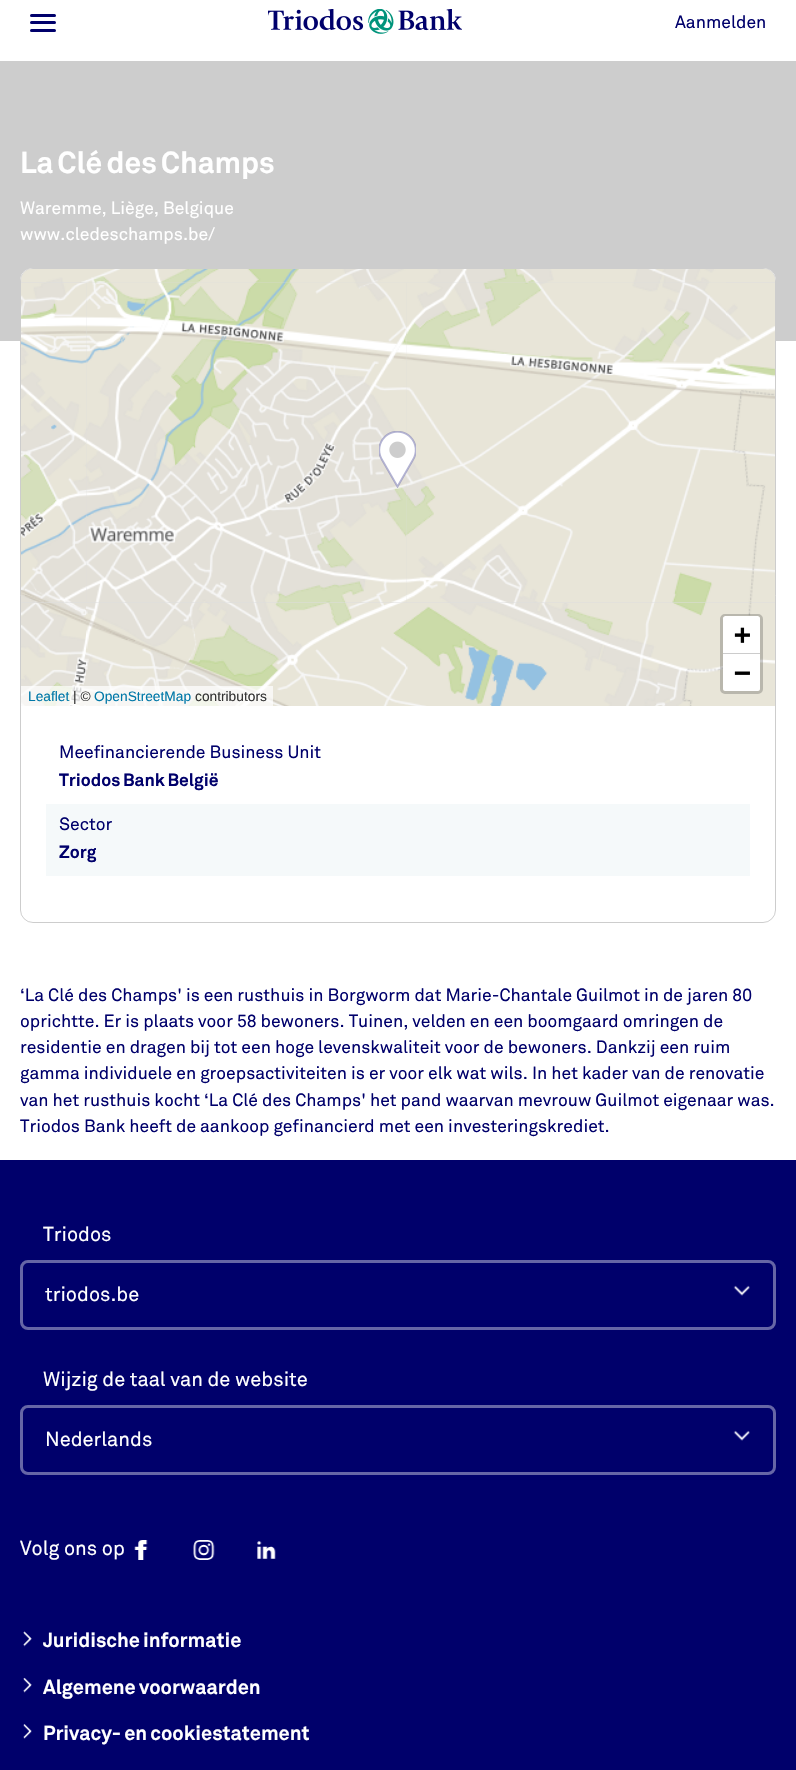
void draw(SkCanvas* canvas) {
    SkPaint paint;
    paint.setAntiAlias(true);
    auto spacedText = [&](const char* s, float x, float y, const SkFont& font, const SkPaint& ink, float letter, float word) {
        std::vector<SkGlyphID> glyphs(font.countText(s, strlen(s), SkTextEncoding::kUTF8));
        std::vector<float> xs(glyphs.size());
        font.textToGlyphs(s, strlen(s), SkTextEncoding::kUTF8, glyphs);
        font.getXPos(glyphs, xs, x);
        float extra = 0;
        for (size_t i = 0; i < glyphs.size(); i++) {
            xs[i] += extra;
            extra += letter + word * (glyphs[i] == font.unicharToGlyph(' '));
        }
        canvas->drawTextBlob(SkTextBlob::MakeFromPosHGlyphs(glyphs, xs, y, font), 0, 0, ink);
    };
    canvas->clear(0xFFFFFFFF);
    paint.setColor(0xFF00006B);
    canvas->drawRoundRect(SkRect::MakeXYWH(30, 21, 26, 3), 1.5f, 1.5f, paint);
    canvas->drawRoundRect(SkRect::MakeXYWH(30, 14, 26, 3), 1.5f, 1.5f, paint);
    canvas->drawRoundRect(SkRect::MakeXYWH(30, 29, 26, 3), 1.5f, 1.5f, paint);
    canvas->drawImageRect(SkImages::DeferredFromEncodedData(SkData::MakeFromFileName("img1.png")), SkRect::MakeXYWH(268, 9, 194, 25), SkSamplingOptions());
    SkFont font1(fontMgr->matchFamilyStyle("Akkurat", SkFontStyle::Normal()), 17.5f);
    font1.setSubpixel(true);
    canvas->drawString("Aanmelden", 675, 28, font1, paint);
    paint.setColor(0xFFCDCDCD);
    canvas->drawRect(SkRect::MakeXYWH(0, 61, 796, 280), paint);
    SkFont font2(fontMgr->matchFamilyStyle("Akkurat", SkFontStyle::Bold()), 30);
    font2.setSubpixel(true);
    paint.setColor(0xFFFFFFFF);
    spacedText("La Clé des Champs", 20, 173, font2, paint, 0, -2);
    canvas->drawString("Waremme, Liège, Belgique", 20, 214, font1, paint);
    canvas->drawString("www.cledeschamps.be/", 20, 240, font1, paint);
    canvas->drawRoundRect(SkRect::MakeXYWH(20, 268, 756, 655), 13, 13, paint);
    paint.setStyle(SkPaint::kStroke_Style);
    paint.setStrokeWidth(1);
    paint.setColor(0x809B9B9B);
    canvas->drawRoundRect(SkRect::MakeXYWH(20.5f, 268.5f, 755, 654), 12.5f, 12.5f, paint);
    paint.setStyle(SkPaint::kFill_Style);
    paint.setColor(0xFFDDDDDD);
    canvas->drawPath(SkPathBuilder().moveTo(32, 269).lineTo(764, 269).cubicTo(770, 269, 775, 274, 775, 280).lineTo(775, 706).lineTo(21, 706).lineTo(21, 280).cubicTo(21, 274, 26, 269, 32, 269).close().detach(), paint);
    canvas->drawImageRect(SkImages::DeferredFromEncodedData(SkData::MakeFromFileName("img2.png")), SkRect::MakeXYWH(21, 269, 65, 14), SkSamplingOptions());
    canvas->drawImageRect(SkImages::DeferredFromEncodedData(SkData::MakeFromFileName("img7.png")), SkRect::MakeXYWH(86, 282, 321, 321), SkSamplingOptions());
    canvas->drawImageRect(SkImages::DeferredFromEncodedData(SkData::MakeFromFileName("img3.png")), SkRect::MakeXYWH(86, 269, 320, 14), SkSamplingOptions());
    canvas->drawImageRect(SkImages::DeferredFromEncodedData(SkData::MakeFromFileName("img8.png")), SkRect::MakeXYWH(406, 282, 321, 321), SkSamplingOptions());
    canvas->drawImageRect(SkImages::DeferredFromEncodedData(SkData::MakeFromFileName("img4.png")), SkRect::MakeXYWH(406, 269, 320, 14), SkSamplingOptions());
    canvas->drawImageRect(SkImages::DeferredFromEncodedData(SkData::MakeFromFileName("img5.png")), SkRect::MakeXYWH(726, 269, 49, 14), SkSamplingOptions());
    canvas->drawImageRect(SkImages::DeferredFromEncodedData(SkData::MakeFromFileName("img6.png")), SkRect::MakeXYWH(21, 283, 65, 320), SkSamplingOptions());
    canvas->drawImageRect(SkImages::DeferredFromEncodedData(SkData::MakeFromFileName("img9.png")), SkRect::MakeXYWH(726, 283, 49, 320), SkSamplingOptions());
    canvas->drawImageRect(SkImages::DeferredFromEncodedData(SkData::MakeFromFileName("img10.png")), SkRect::MakeXYWH(21, 603, 65, 103), SkSamplingOptions());
    canvas->drawImageRect(SkImages::DeferredFromEncodedData(SkData::MakeFromFileName("img11.png")), SkRect::MakeXYWH(86, 603, 320, 103), SkSamplingOptions());
    canvas->drawImageRect(SkImages::DeferredFromEncodedData(SkData::MakeFromFileName("img12.png")), SkRect::MakeXYWH(406, 603, 320, 103), SkSamplingOptions());
    canvas->drawImageRect(SkImages::DeferredFromEncodedData(SkData::MakeFromFileName("img13.png")), SkRect::MakeXYWH(726, 603, 49, 103), SkSamplingOptions());
    canvas->drawImageRect(SkImages::DeferredFromEncodedData(SkData::MakeFromFileName("img14.png")), SkRect::MakeXYWH(379, 431, 37, 57), SkSamplingOptions());
    paint.setStyle(SkPaint::kStroke_Style);
    paint.setStrokeWidth(3);
    paint.setColor(0x33000000);
    canvas->drawRoundRect(SkRect::MakeXYWH(721.5f, 615.5f, 40, 77), 3.5f, 3.5f, paint);
    paint.setStyle(SkPaint::kFill_Style);
    paint.setColor(0xFFFFFFFF);
    canvas->drawPath(SkPathBuilder().moveTo(725.5f, 616).lineTo(757.5f, 616).cubicTo(759, 616, 760, 617, 760, 618.5f).lineTo(760, 654).lineTo(723, 654).lineTo(723, 618.5f).cubicTo(723, 617, 724, 616, 725.5f, 616).close().detach(), paint);
    paint.setColor(0xFFCCCCCC);
    canvas->drawRect(SkRect::MakeXYWH(723, 653, 37, 1), paint);
    SkFont font3(fontMgr->matchFamilyStyle("DejaVu Sans Mono", SkFontStyle::Bold()), 28);
    font3.setSubpixel(true);
    paint.setColor(0xFF000000);
    canvas->drawString("+", 734, 644, font3, paint);
    paint.setColor(0xFFFFFFFF);
    canvas->drawPath(SkPathBuilder().moveTo(723, 654).lineTo(760, 654).lineTo(760, 688.5f).cubicTo(760, 690, 759, 691, 757.5f, 691).lineTo(725.5f, 691).cubicTo(724, 691, 723, 690, 723, 688.5f).close().detach(), paint);
    paint.setColor(0xFF000000);
    canvas->drawString("−", 734, 682, font3, paint);
    paint.setColor(0xB3FFFFFF);
    canvas->drawRect(SkRect::MakeXYWH(21, 686, 252, 20), paint);
    SkFont font4(fontMgr->matchFamilyStyle("Liberation Sans", SkFontStyle::Normal()), 13.75f);
    font4.setSubpixel(true);
    paint.setColor(0xFF0078A8);
    canvas->drawString("Leaflet", 28, 701, font4, paint);
    paint.setColor(0xFF333333);
    canvas->drawString("| ©", 73, 701, font4, paint);
    paint.setColor(0xFF0078A8);
    canvas->drawString("OpenStreetMap", 94, 701, font4, paint);
    paint.setColor(0xFF333333);
    canvas->drawString("contributors", 195, 701, font4, paint);
    paint.setColor(0xFF00006B);
    canvas->drawString("Meefinancierende Business Unit", 59, 758, font1, paint);
    SkFont font5(fontMgr->matchFamilyStyle("Akkurat", SkFontStyle::Bold()), 17.5f);
    font5.setSubpixel(true);
    spacedText("Triodos Bank België", 59, 786, font5, paint, 0, -1);
    paint.setColor(0xFFF5F9FA);
    canvas->drawRect(SkRect::MakeXYWH(46, 804, 704, 72), paint);
    paint.setColor(0xFF00006B);
    canvas->drawString("Sector", 59, 830, font1, paint);
    canvas->drawString("Zorg", 59, 858, font5, paint);
    canvas->drawString("‘La Clé des Champs' is een rusthuis in Borgworm dat Marie-Chantale Guilmot in de jaren 80", 20, 1001, font1, paint);
    canvas->drawString("oprichtte. Er is plaats voor 58 bewoners. Tuinen, velden en een boomgaard omringen de", 20, 1027, font1, paint);
    canvas->drawString("residentie en dragen bij tot een hoge levenskwaliteit voor de bewoners. Dankzij een ruim", 20, 1053, font1, paint);
    canvas->drawString("gamma individuele en groepsactiviteiten is er voor elk wat wils. In het kader van de renovatie", 20, 1079, font1, paint);
    canvas->drawString("van het rusthuis kocht ‘La Clé des Champs' het pand waarvan mevrouw Guilmot eigenaar was.", 20, 1106, font1, paint);
    canvas->drawString("Triodos Bank heeft de aankoop gefinancierd met een investeringskrediet.", 20, 1132, font1, paint);
    canvas->drawRect(SkRect::MakeXYWH(0, 1160, 796, 610), paint);
    SkFont font6(fontMgr->matchFamilyStyle("Akkurat", SkFontStyle::Normal()), 20);
    font6.setSubpixel(true);
    paint.setColor(0xFFFFFFFF);
    canvas->drawString("Triodos", 43, 1241, font6, paint);
    paint.setStyle(SkPaint::kStroke_Style);
    paint.setColor(0xFF6666A6);
    canvas->drawRoundRect(SkRect::MakeXYWH(21.5f, 1261.5f, 753, 67), 6.5f, 6.5f, paint);
    paint.setStyle(SkPaint::kFill_Style);
    paint.setColor(0xFFFFFFFF);
    canvas->drawString("triodos.be", 45, 1301, font6, paint);
    canvas->drawImageRect(SkImages::DeferredFromEncodedData(SkData::MakeFromFileName("img15.png")), SkRect::MakeXYWH(733, 1285, 17, 11), SkSamplingOptions());
    canvas->drawString("Wijzig de taal van de website", 43, 1386, font6, paint);
    paint.setStyle(SkPaint::kStroke_Style);
    paint.setColor(0xFF6666A6);
    canvas->drawRoundRect(SkRect::MakeXYWH(21.5f, 1406.5f, 753, 67), 6.5f, 6.5f, paint);
    paint.setStyle(SkPaint::kFill_Style);
    paint.setColor(0xFFFFFFFF);
    canvas->drawString("Nederlands", 45, 1446, font6, paint);
    canvas->drawImageRect(SkImages::DeferredFromEncodedData(SkData::MakeFromFileName("img15.png")), SkRect::MakeXYWH(733, 1430, 17, 11), SkSamplingOptions());
    canvas->drawString("Volg ons op", 20, 1555, font6, paint);
    canvas->drawImageRect(SkImages::DeferredFromEncodedData(SkData::MakeFromFileName("img16.png")), SkRect::MakeXYWH(134, 1540, 14, 20), SkSamplingOptions());
    canvas->drawImageRect(SkImages::DeferredFromEncodedData(SkData::MakeFromFileName("img17.png")), SkRect::MakeXYWH(193, 1540, 22, 20), SkSamplingOptions());
    canvas->drawImageRect(SkImages::DeferredFromEncodedData(SkData::MakeFromFileName("img18.png")), SkRect::MakeXYWH(257, 1541, 19, 18), SkSamplingOptions());
    canvas->drawImageRect(SkImages::DeferredFromEncodedData(SkData::MakeFromFileName("img19.png")), SkRect::MakeXYWH(23, 1631, 9, 16), SkSamplingOptions());
    SkFont font7(fontMgr->matchFamilyStyle("Akkurat", SkFontStyle::Bold()), 20);
    font7.setSubpixel(true);
    spacedText("Juridische informatie", 43, 1647, font7, paint, 0, -1);
    canvas->drawImageRect(SkImages::DeferredFromEncodedData(SkData::MakeFromFileName("img20.png")), SkRect::MakeXYWH(23, 1677, 9, 16), SkSamplingOptions());
    spacedText("Algemene voorwaarden", 43, 1694, font7, paint, 0, -1);
    canvas->drawImageRect(SkImages::DeferredFromEncodedData(SkData::MakeFromFileName("img21.png")), SkRect::MakeXYWH(23, 1724, 9, 15), SkSamplingOptions());
    spacedText("Privacy- en cookiestatement", 43, 1740, font7, paint, 0, -1);
}
